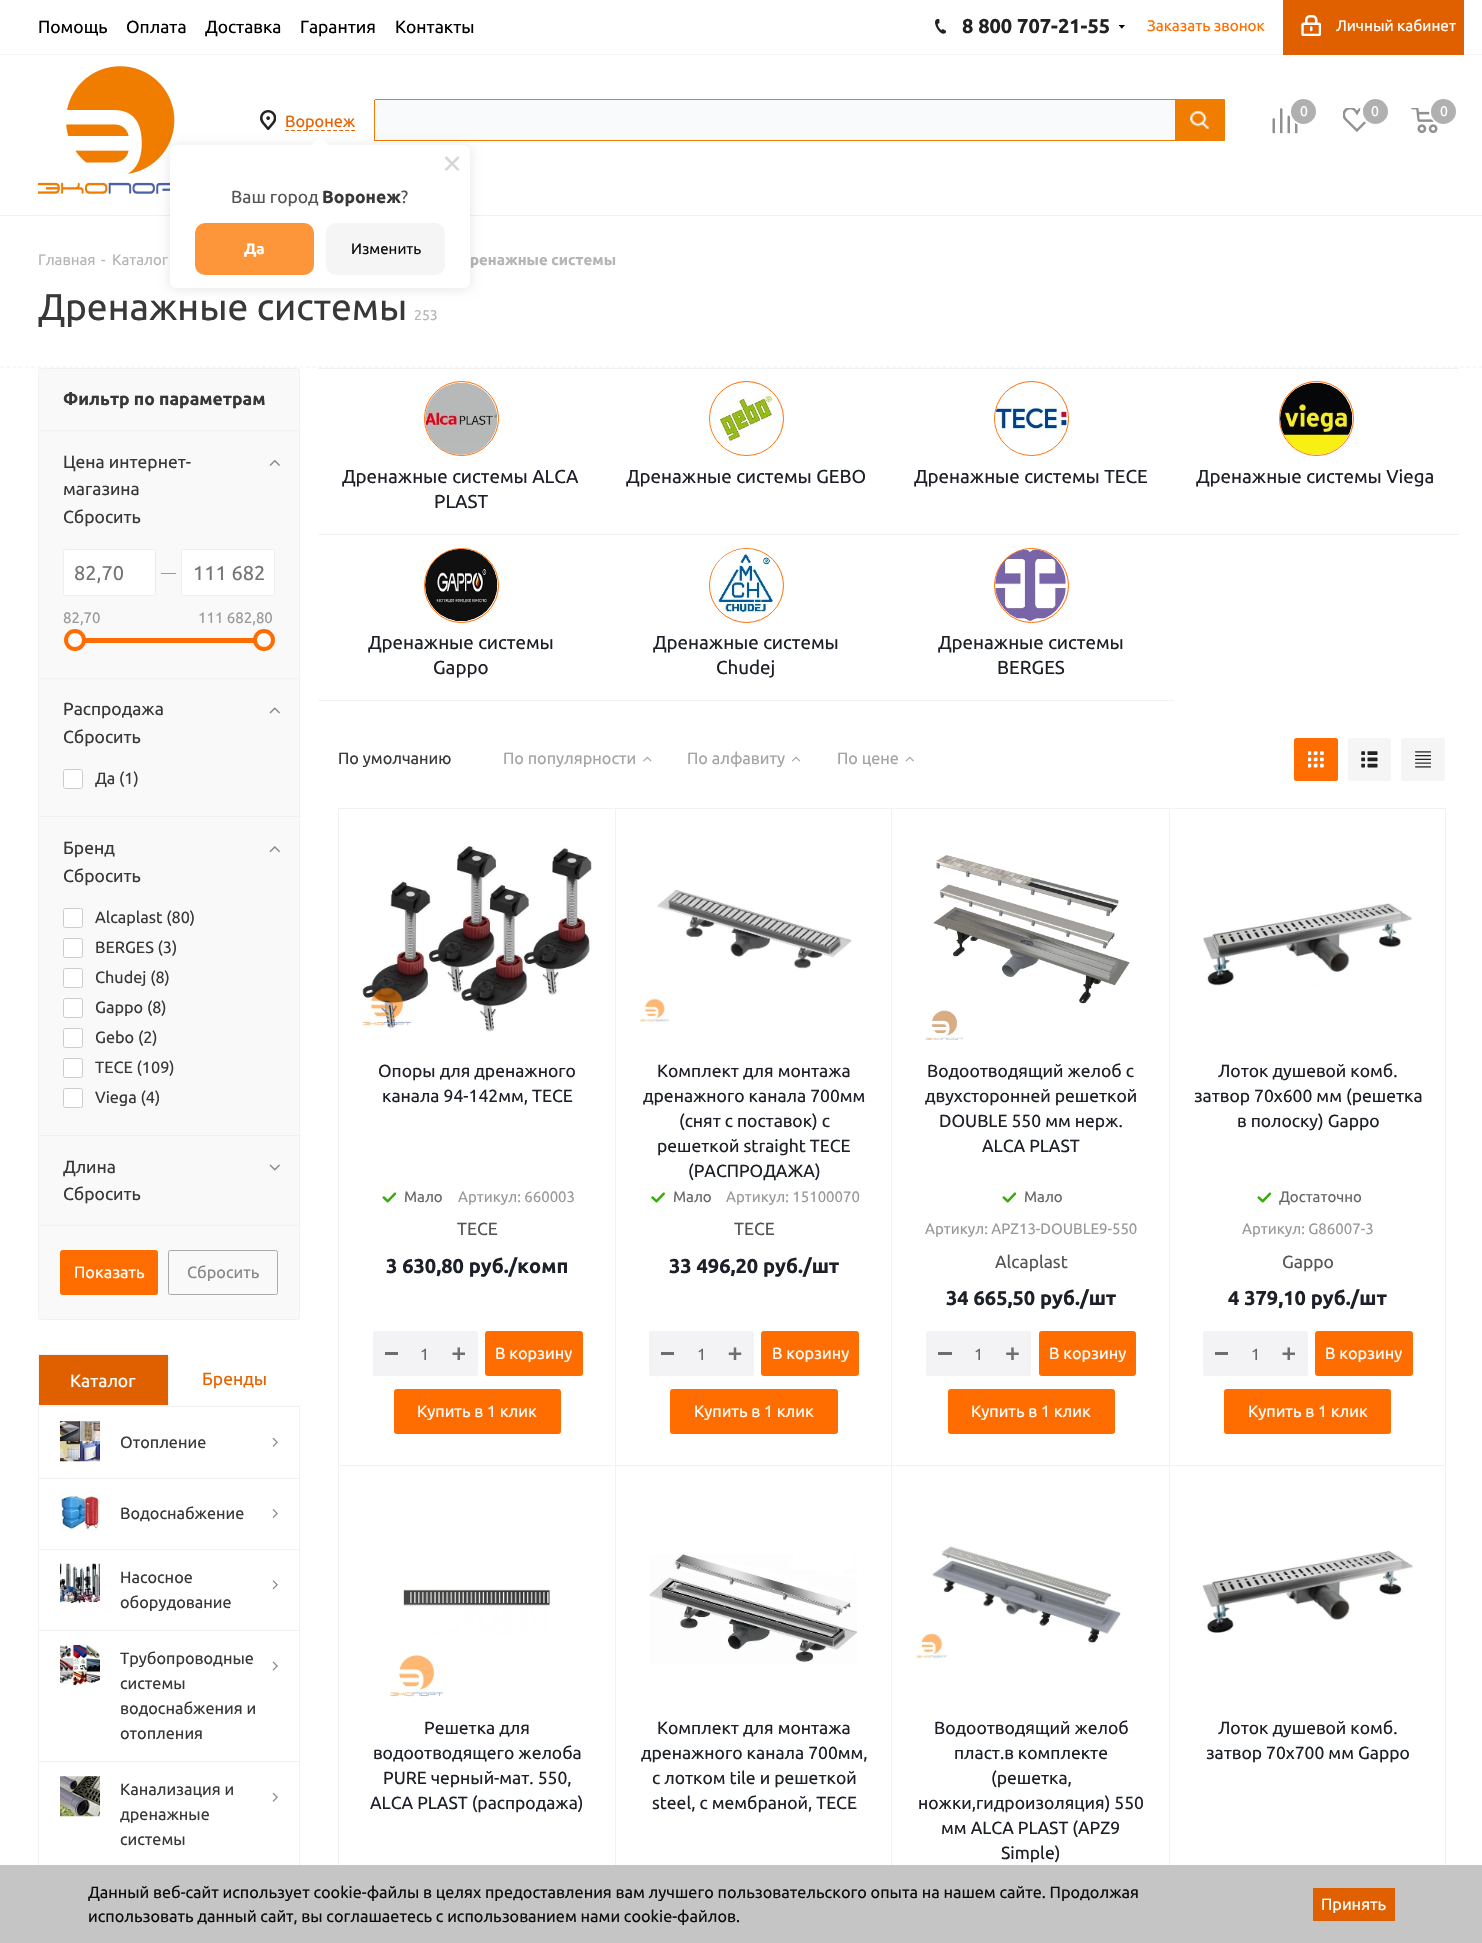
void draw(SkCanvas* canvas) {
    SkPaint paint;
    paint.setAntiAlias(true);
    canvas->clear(0xFFFFFFFF);
    paint.setColor(0xFFF6F6F6);
    canvas->drawRect(SkRect::MakeXYWH(0, 54, 1482, 1), paint);
    SkFont font1(fontMgr->matchFamilyStyle("Ubuntu", SkFontStyle::Normal()), 17.5f);
    font1.setSubpixel(true);
    paint.setColor(0xFF000000);
    canvas->drawString("Помощь", 38, 33, font1, paint);
    canvas->drawString("Оплата", 126, 33, font1, paint);
    canvas->drawString("Доставка", 205, 33, font1, paint);
    canvas->drawString("Гарантия", 300, 33, font1, paint);
    canvas->drawString("Контакты", 395, 33, font1, paint);
    canvas->drawImageRect(SkImages::DeferredFromEncodedData(SkData::MakeFromFileName("img1.png")), SkRect::MakeXYWH(935, 19, 11, 15), SkSamplingOptions());
    SkFont font2(fontMgr->matchFamilyStyle("Ubuntu", SkFontStyle::Bold()), 20);
    font2.setSubpixel(true);
    paint.setColor(0xFF222222);
    canvas->drawString("8 800 707-21-55", 962, 33, font2, paint);
    canvas->drawImageRect(SkImages::DeferredFromEncodedData(SkData::MakeFromFileName("img2.png")), SkRect::MakeXYWH(1119, 25, 6, 4), SkSamplingOptions());
    SkFont font3(fontMgr->matchFamilyStyle("Ubuntu", SkFontStyle::Normal()), 15.25f);
    font3.setSubpixel(true);
    paint.setColor(0xFFFF6D00);
    canvas->drawString("Заказать звонок", 1147, 31, font3, paint);
    paint.setColor(0xFFE06000);
    canvas->drawRect(SkRect::MakeXYWH(1283, 0, 181, 55), paint);
    canvas->drawImageRect(SkImages::DeferredFromEncodedData(SkData::MakeFromFileName("img3.png")), SkRect::MakeXYWH(1301, 15, 20, 21), SkSamplingOptions());
    paint.setColor(0xFFFFFFFF);
    canvas->drawString("Личный кабинет", 1336, 31, font3, paint);
    canvas->drawImageRect(SkImages::DeferredFromEncodedData(SkData::MakeFromFileName("img4.png")), SkRect::MakeXYWH(38, 66, 137, 128), SkSamplingOptions());
    paint.setColor(0xFFF8FAFC);
    canvas->drawPath(SkPathBuilder().moveTo(375, 99).lineTo(1175, 99).lineTo(1175, 141).lineTo(375, 141).cubicTo(374.5f, 141, 374, 140.5f, 374, 140).lineTo(374, 100).cubicTo(374, 99.5f, 374.5f, 99, 375, 99).close().detach(), paint);
    paint.setColor(0xFFF07C00);
    canvas->drawRect(SkRect::MakeXYWH(375, 99, 800, 1), paint);
    canvas->drawRect(SkRect::MakeXYWH(375, 140, 800, 1), paint);
    canvas->drawRect(SkRect::MakeXYWH(374, 100, 1, 41), paint);
    canvas->drawPath(SkPathBuilder().moveTo(1175, 99).lineTo(1224, 99).cubicTo(1224.5f, 99, 1225, 99.5f, 1225, 100).lineTo(1225, 140).cubicTo(1225, 140.5f, 1224.5f, 141, 1224, 141).lineTo(1175, 141).close().detach(), paint);
    canvas->drawImageRect(SkImages::DeferredFromEncodedData(SkData::MakeFromFileName("img5.png")), SkRect::MakeXYWH(1190, 111, 19, 18), SkSamplingOptions());
    canvas->drawImageRect(SkImages::DeferredFromEncodedData(SkData::MakeFromFileName("img6.png")), SkRect::MakeXYWH(1272, 108, 26, 26), SkSamplingOptions());
    paint.setStyle(SkPaint::kStroke_Style);
    paint.setStrokeWidth(3);
    paint.setColor(0xFFFFFFFF);
    canvas->drawCircle(1304, 111, 13.5f, paint);
    paint.setStyle(SkPaint::kFill_Style);
    paint.setColor(0xFFB0B0B0);
    canvas->drawCircle(1303.5f, 111.5f, 12.5f, paint);
    SkFont font4(fontMgr->matchFamilyStyle("Ubuntu", SkFontStyle::Normal()), 14);
    font4.setSubpixel(true);
    paint.setColor(0xFFFFFFFF);
    canvas->drawString("0", 1300, 116, font4, paint);
    canvas->drawImageRect(SkImages::DeferredFromEncodedData(SkData::MakeFromFileName("img7.png")), SkRect::MakeXYWH(1343, 108, 25, 24), SkSamplingOptions());
    paint.setStyle(SkPaint::kStroke_Style);
    canvas->drawCircle(1375, 111, 13.5f, paint);
    paint.setStyle(SkPaint::kFill_Style);
    paint.setColor(0xFFB0B0B0);
    canvas->drawCircle(1375.5f, 111.5f, 12.5f, paint);
    paint.setColor(0xFFFFFFFF);
    canvas->drawString("0", 1371, 116, font4, paint);
    canvas->drawImageRect(SkImages::DeferredFromEncodedData(SkData::MakeFromFileName("img8.png")), SkRect::MakeXYWH(1411, 108, 27, 26), SkSamplingOptions());
    paint.setStyle(SkPaint::kStroke_Style);
    canvas->drawCircle(1444, 111, 13.5f, paint);
    paint.setStyle(SkPaint::kFill_Style);
    paint.setColor(0xFFB0B0B0);
    canvas->drawCircle(1443.5f, 111.5f, 12.5f, paint);
    paint.setColor(0xFFFFFFFF);
    canvas->drawString("0", 1440, 116, font4, paint);
    canvas->drawImageRect(SkImages::DeferredFromEncodedData(SkData::MakeFromFileName("img9.png")), SkRect::MakeXYWH(260, 110, 16, 20), SkSamplingOptions());
    paint.setStyle(SkPaint::kStroke_Style);
    paint.setStrokeWidth(1.2f);
    paint.setColor(0xFFE66200);
    paint.setPathEffect(SkDashPathEffect::Make({{3.75f, 2.27f}}, 0));
    canvas->drawPath(SkPathBuilder().moveTo(285, 130.5f).lineTo(355, 130.5f).detach(), paint);
    paint.setPathEffect(nullptr);
    SkFont font5(fontMgr->matchFamilyStyle("Ubuntu", SkFontStyle::Normal()), 16.25f);
    font5.setSubpixel(true);
    paint.setStyle(SkPaint::kFill_Style);
    canvas->drawString("Воронеж", 285, 127, font5, paint);
    paint.setColor(0xFFF2F2F2);
    canvas->drawRect(SkRect::MakeXYWH(0, 215, 1482, 1), paint);
    paint.setStyle(SkPaint::kStroke_Style);
    paint.setColor(0xFFF1F1F1);
    paint.setPathEffect(SkDashPathEffect::Make({{3.75f, 2.49f}}, 0));
    canvas->drawPath(SkPathBuilder().moveTo(0, 367).lineTo(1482.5f, 367).detach(), paint);
    paint.setPathEffect(nullptr);
    SkFont font6(fontMgr->matchFamilyStyle("Ubuntu", SkFontStyle::Normal()), 15);
    font6.setSubpixel(true);
    paint.setStyle(SkPaint::kFill_Style);
    paint.setColor(0xFFB6B5B5);
    canvas->drawString("Главная", 38, 265, font6, paint);
    canvas->drawString("-", 101, 265, font6, paint);
    canvas->drawString("Каталог", 112, 265, font6, paint);
    SkFont font7(fontMgr->matchFamilyStyle("Ubuntu", SkFontStyle::Bold()), 15);
    font7.setSubpixel(true);
    canvas->drawString("ренажные системы", 470, 265, font7, paint);
    SkFont font8(fontMgr->matchFamilyStyle("Ubuntu", SkFontStyle::Normal()), 37.25f);
    font8.setSubpixel(true);
    paint.setColor(0xFF383838);
    canvas->drawString("Дренажные системы", 38, 320, font8, paint);
    paint.setColor(0xFFB6B5B5);
    canvas->drawString("253", 414, 320, font4, paint);
    paint.setColor(0xFFF9F9F9);
    canvas->drawRoundRect(SkRect::MakeXYWH(38.5f, 368.5f, 261, 951), 2, 2, paint);
    paint.setStyle(SkPaint::kStroke_Style);
    paint.setStrokeWidth(1);
    paint.setColor(0xFFF2F2F2);
    canvas->drawRoundRect(SkRect::MakeXYWH(38.5f, 368.5f, 261, 951), 2, 2, paint);
    paint.setStyle(SkPaint::kFill_Style);
    canvas->drawRect(SkRect::MakeXYWH(39, 430, 260, 1), paint);
    SkFont font9(fontMgr->matchFamilyStyle("Ubuntu", SkFontStyle::Bold()), 17.5f);
    font9.setSubpixel(true);
    paint.setColor(0xFF383838);
    canvas->drawString("Фильтр по параметрам", 63, 405, font9, paint);
    paint.setColor(0xFFF2F2F2);
    canvas->drawRect(SkRect::MakeXYWH(39, 678, 260, 1), paint);
    paint.setColor(0xFF383838);
    canvas->drawString("Цена интернет-", 63, 468, font1, paint);
    canvas->drawImageRect(SkImages::DeferredFromEncodedData(SkData::MakeFromFileName("img10.png")), SkRect::MakeXYWH(269, 459, 11, 7), SkSamplingOptions());
    canvas->drawString("магазина", 63, 495, font1, paint);
    canvas->drawString("Сбросить", 63, 523, font1, paint);
    paint.setColor(0xFFFFFFFF);
    canvas->drawRoundRect(SkRect::MakeXYWH(63.5f, 549.5f, 92, 46), 2, 2, paint);
    paint.setStyle(SkPaint::kStroke_Style);
    paint.setColor(0xFFEEEEEE);
    canvas->drawRoundRect(SkRect::MakeXYWH(63.5f, 549.5f, 92, 46), 2, 2, paint);
    SkFont font10(fontMgr->matchFamilyStyle("Ubuntu", SkFontStyle::Normal()), 20);
    font10.setSubpixel(true);
    paint.setStyle(SkPaint::kFill_Style);
    paint.setColor(0xFF757575);
    canvas->drawString("82,70", 74, 580, font10, paint);
    paint.setColor(0xFF9A9A9A);
    canvas->drawRect(SkRect::MakeXYWH(161, 573, 15, 1), paint);
    paint.setColor(0xFFFFFFFF);
    canvas->drawRoundRect(SkRect::MakeXYWH(181.5f, 549.5f, 93, 46), 2, 2, paint);
    paint.setStyle(SkPaint::kStroke_Style);
    paint.setColor(0xFFEEEEEE);
    canvas->drawRoundRect(SkRect::MakeXYWH(181.5f, 549.5f, 93, 46), 2, 2, paint);
    paint.setStyle(SkPaint::kFill_Style);
    paint.setColor(0xFF757575);
    canvas->drawString("111 682", 193, 580, font10, paint);
    paint.setColor(0xFF999999);
    canvas->drawString("82,70", 63, 623, font6, paint);
    canvas->drawString("111 682,80", 198, 623, font6, paint);
    paint.setColor(0xFFFF6D00);
    canvas->drawRect(SkRect::MakeXYWH(85, 638, 169, 5), paint);
    paint.setColor(0xFFFFFFFF);
    canvas->drawCircle(75, 640, 9, paint);
    paint.setStyle(SkPaint::kStroke_Style);
    paint.setStrokeWidth(4);
    paint.setColor(0xFFFF6D00);
    canvas->drawCircle(75, 640, 9, paint);
    paint.setStyle(SkPaint::kFill_Style);
    paint.setColor(0xFFFFFFFF);
    canvas->drawCircle(264, 640, 9, paint);
    paint.setStyle(SkPaint::kStroke_Style);
    paint.setColor(0xFFFF6D00);
    canvas->drawCircle(264, 640, 9, paint);
    paint.setStyle(SkPaint::kFill_Style);
    paint.setColor(0xFFF2F2F2);
    canvas->drawRect(SkRect::MakeXYWH(39, 816, 260, 1), paint);
    paint.setColor(0xFF383838);
    canvas->drawString("Распродажа", 63, 715, font1, paint);
    canvas->drawImageRect(SkImages::DeferredFromEncodedData(SkData::MakeFromFileName("img11.png")), SkRect::MakeXYWH(269, 707, 11, 7), SkSamplingOptions());
    canvas->drawString("Сбросить", 63, 743, font1, paint);
    paint.setColor(0xFFFFFFFF);
    canvas->drawRoundRect(SkRect::MakeXYWH(63.5f, 769.5f, 19, 19), 2, 2, paint);
    paint.setStyle(SkPaint::kStroke_Style);
    paint.setStrokeWidth(1);
    paint.setColor(0xFFCCCCCC);
    canvas->drawRoundRect(SkRect::MakeXYWH(63.5f, 769.5f, 19, 19), 2, 2, paint);
    paint.setStyle(SkPaint::kFill_Style);
    paint.setColor(0xFF383838);
    canvas->drawString("Да (1)", 95, 784, font5, paint);
    paint.setColor(0xFFF2F2F2);
    canvas->drawRect(SkRect::MakeXYWH(39, 1135, 260, 1), paint);
    paint.setColor(0xFF383838);
    canvas->drawString("Бренд", 63, 854, font1, paint);
    canvas->drawImageRect(SkImages::DeferredFromEncodedData(SkData::MakeFromFileName("img12.png")), SkRect::MakeXYWH(269, 846, 11, 7), SkSamplingOptions());
    canvas->drawString("Сбросить", 63, 882, font1, paint);
    paint.setColor(0xFFFFFFFF);
    canvas->drawRoundRect(SkRect::MakeXYWH(63.5f, 908.5f, 19, 19), 2, 2, paint);
    paint.setStyle(SkPaint::kStroke_Style);
    paint.setColor(0xFFCCCCCC);
    canvas->drawRoundRect(SkRect::MakeXYWH(63.5f, 908.5f, 19, 19), 2, 2, paint);
    paint.setStyle(SkPaint::kFill_Style);
    paint.setColor(0xFF383838);
    canvas->drawString("Alcaplast (80)", 95, 923, font5, paint);
    paint.setColor(0xFFFFFFFF);
    canvas->drawRoundRect(SkRect::MakeXYWH(63.5f, 938.5f, 19, 19), 2, 2, paint);
    paint.setStyle(SkPaint::kStroke_Style);
    paint.setColor(0xFFCCCCCC);
    canvas->drawRoundRect(SkRect::MakeXYWH(63.5f, 938.5f, 19, 19), 2, 2, paint);
    paint.setStyle(SkPaint::kFill_Style);
    paint.setColor(0xFF383838);
    canvas->drawString("BERGES (3)", 95, 953, font5, paint);
    paint.setColor(0xFFFFFFFF);
    canvas->drawRoundRect(SkRect::MakeXYWH(63.5f, 968.5f, 19, 19), 2, 2, paint);
    paint.setStyle(SkPaint::kStroke_Style);
    paint.setColor(0xFFCCCCCC);
    canvas->drawRoundRect(SkRect::MakeXYWH(63.5f, 968.5f, 19, 19), 2, 2, paint);
    paint.setStyle(SkPaint::kFill_Style);
    paint.setColor(0xFF383838);
    canvas->drawString("Chudej (8)", 95, 983, font5, paint);
    paint.setColor(0xFFFFFFFF);
    canvas->drawRoundRect(SkRect::MakeXYWH(63.5f, 998.5f, 19, 19), 2, 2, paint);
    paint.setStyle(SkPaint::kStroke_Style);
    paint.setColor(0xFFCCCCCC);
    canvas->drawRoundRect(SkRect::MakeXYWH(63.5f, 998.5f, 19, 19), 2, 2, paint);
    paint.setStyle(SkPaint::kFill_Style);
    paint.setColor(0xFF383838);
    canvas->drawString("Gappo (8)", 95, 1013, font5, paint);
    paint.setColor(0xFFFFFFFF);
    canvas->drawRoundRect(SkRect::MakeXYWH(63.5f, 1028.5f, 19, 19), 2, 2, paint);
    paint.setStyle(SkPaint::kStroke_Style);
    paint.setColor(0xFFCCCCCC);
    canvas->drawRoundRect(SkRect::MakeXYWH(63.5f, 1028.5f, 19, 19), 2, 2, paint);
    paint.setStyle(SkPaint::kFill_Style);
    paint.setColor(0xFF383838);
    canvas->drawString("Gebo (2)", 95, 1043, font5, paint);
    paint.setColor(0xFFFFFFFF);
    canvas->drawRoundRect(SkRect::MakeXYWH(63.5f, 1058.5f, 19, 19), 2, 2, paint);
    paint.setStyle(SkPaint::kStroke_Style);
    paint.setColor(0xFFCCCCCC);
    canvas->drawRoundRect(SkRect::MakeXYWH(63.5f, 1058.5f, 19, 19), 2, 2, paint);
    paint.setStyle(SkPaint::kFill_Style);
    paint.setColor(0xFF383838);
    canvas->drawString("TECE (109)", 95, 1073, font5, paint);
    paint.setColor(0xFFFFFFFF);
    canvas->drawRoundRect(SkRect::MakeXYWH(63.5f, 1088.5f, 19, 19), 2, 2, paint);
    paint.setStyle(SkPaint::kStroke_Style);
    paint.setColor(0xFFCCCCCC);
    canvas->drawRoundRect(SkRect::MakeXYWH(63.5f, 1088.5f, 19, 19), 2, 2, paint);
    paint.setStyle(SkPaint::kFill_Style);
    paint.setColor(0xFF383838);
    canvas->drawString("Viega (4)", 95, 1103, font5, paint);
    paint.setColor(0xFFF2F2F2);
    canvas->drawRect(SkRect::MakeXYWH(39, 1225, 260, 1), paint);
    paint.setColor(0xFF383838);
    canvas->drawString("Длина", 63, 1173, font1, paint);
    canvas->drawImageRect(SkImages::DeferredFromEncodedData(SkData::MakeFromFileName("img13.png")), SkRect::MakeXYWH(269, 1164, 11, 7), SkSamplingOptions());
    canvas->drawString("Сбросить", 63, 1200, font1, paint);
    paint.setColor(0xFFFF6D00);
    canvas->drawRoundRect(SkRect::MakeXYWH(60.5f, 1250.5f, 97, 44), 2, 2, paint);
    paint.setStyle(SkPaint::kStroke_Style);
    canvas->drawRoundRect(SkRect::MakeXYWH(60.5f, 1250.5f, 97, 44), 2, 2, paint);
    paint.setStyle(SkPaint::kFill_Style);
    paint.setColor(0xFFFFFFFF);
    canvas->drawString("Показать", 74, 1278, font5, paint);
    paint.setStyle(SkPaint::kStroke_Style);
    paint.setColor(0xFFAAAAAA);
    canvas->drawRoundRect(SkRect::MakeXYWH(168.5f, 1250.5f, 109, 44), 2, 2, paint);
    paint.setStyle(SkPaint::kFill_Style);
    paint.setColor(0xFF888888);
    canvas->drawString("Сбросить", 187, 1278, font5, paint);
    paint.setColor(0xFFE06000);
    canvas->drawRect(SkRect::MakeXYWH(38.5f, 1354.5f, 130, 51), paint);
    paint.setStyle(SkPaint::kStroke_Style);
    paint.setColor(0xFFF5F5F5);
    canvas->drawRect(SkRect::MakeXYWH(38.5f, 1354.5f, 130, 51), paint);
    paint.setStyle(SkPaint::kFill_Style);
    paint.setColor(0xFFFFFFFF);
    canvas->drawString("Каталог", 70, 1387, font1, paint);
    paint.setColor(0xFFE66200);
    canvas->drawString("Бренды", 202, 1385, font1, paint);
    paint.setColor(0xFFF2F2F2);
    canvas->drawRect(SkRect::MakeXYWH(38, 1406, 262, 1), paint);
    canvas->drawRect(SkRect::MakeXYWH(299, 1406, 1, 72), paint);
    canvas->drawRect(SkRect::MakeXYWH(38, 1406, 1, 72), paint);
    canvas->drawImageRect(SkImages::DeferredFromEncodedData(SkData::MakeFromFileName("img14.png")), SkRect::MakeXYWH(60, 1421, 40, 41), SkSamplingOptions());
    paint.setColor(0xFF383838);
    canvas->drawString("Отопление", 120, 1448, font5, paint);
    canvas->drawImageRect(SkImages::DeferredFromEncodedData(SkData::MakeFromFileName("img15.png")), SkRect::MakeXYWH(272, 1437, 6, 10), SkSamplingOptions());
    paint.setColor(0xFFF2F2F2);
    canvas->drawRect(SkRect::MakeXYWH(38, 1478, 262, 1), paint);
    canvas->drawRect(SkRect::MakeXYWH(299, 1478, 1, 71), paint);
    canvas->drawRect(SkRect::MakeXYWH(38, 1478, 1, 71), paint);
    canvas->drawImageRect(SkImages::DeferredFromEncodedData(SkData::MakeFromFileName("img16.png")), SkRect::MakeXYWH(60, 1492, 40, 39), SkSamplingOptions());
    paint.setColor(0xFF383838);
    canvas->drawString("Водоснабжение", 120, 1519, font5, paint);
    canvas->drawImageRect(SkImages::DeferredFromEncodedData(SkData::MakeFromFileName("img17.png")), SkRect::MakeXYWH(272, 1509, 6, 9), SkSamplingOptions());
    paint.setColor(0xFFF2F2F2);
    canvas->drawRect(SkRect::MakeXYWH(38, 1549, 262, 1), paint);
    canvas->drawRect(SkRect::MakeXYWH(299, 1549, 1, 81), paint);
    canvas->drawRect(SkRect::MakeXYWH(38, 1549, 1, 81), paint);
    canvas->drawImageRect(SkImages::DeferredFromEncodedData(SkData::MakeFromFileName("img18.png")), SkRect::MakeXYWH(60, 1563, 40, 40), SkSamplingOptions());
    paint.setColor(0xFF383838);
    canvas->drawString("Насосное", 120, 1583, font5, paint);
    canvas->drawString("оборудование", 120, 1608, font5, paint);
    canvas->drawImageRect(SkImages::DeferredFromEncodedData(SkData::MakeFromFileName("img19.png")), SkRect::MakeXYWH(272, 1580, 6, 10), SkSamplingOptions());
    paint.setColor(0xFFF2F2F2);
    canvas->drawRect(SkRect::MakeXYWH(38, 1630, 262, 1), paint);
    canvas->drawRect(SkRect::MakeXYWH(299, 1630, 1, 131), paint);
    canvas->drawRect(SkRect::MakeXYWH(38, 1630, 1, 131), paint);
    canvas->drawImageRect(SkImages::DeferredFromEncodedData(SkData::MakeFromFileName("img20.png")), SkRect::MakeXYWH(60, 1645, 40, 40), SkSamplingOptions());
    paint.setColor(0xFF383838);
    canvas->drawString("Трубопроводные", 120, 1664, font5, paint);
    canvas->drawString("системы", 120, 1689, font5, paint);
    canvas->drawString("водоснабжения и", 120, 1714, font5, paint);
    canvas->drawString("отопления", 120, 1739, font5, paint);
    canvas->drawImageRect(SkImages::DeferredFromEncodedData(SkData::MakeFromFileName("img21.png")), SkRect::MakeXYWH(272, 1661, 6, 10), SkSamplingOptions());
    paint.setColor(0xFFF2F2F2);
    canvas->drawRect(SkRect::MakeXYWH(38, 1761, 262, 1), paint);
    canvas->drawRect(SkRect::MakeXYWH(299, 1761, 1, 107), paint);
    canvas->drawRect(SkRect::MakeXYWH(38, 1761, 1, 107), paint);
    canvas->drawImageRect(SkImages::DeferredFromEncodedData(SkData::MakeFromFileName("img22.png")), SkRect::MakeXYWH(60, 1776, 40, 41), SkSamplingOptions());
    paint.setColor(0xFF383838);
    canvas->drawString("Канализация и", 120, 1795, font5, paint);
    canvas->drawString("дренажные", 120, 1820, font5, paint);
    canvas->drawString("системы", 120, 1845, font5, paint);
    canvas->drawImageRect(SkImages::DeferredFromEncodedData(SkData::MakeFromFileName("img15.png")), SkRect::MakeXYWH(272, 1792, 6, 10), SkSamplingOptions());
    paint.setColor(0xFFF2F2F2);
    canvas->drawRect(SkRect::MakeXYWH(318, 368, 1141, 1), paint);
    canvas->drawRect(SkRect::MakeXYWH(318, 534, 1141, 1), paint);
    paint.setStyle(SkPaint::kStroke_Style);
    paint.setColor(0xFFFF6D00);
    canvas->drawCircle(461.5f, 418.5f, 37, paint);
    canvas->drawImageRect(SkImages::DeferredFromEncodedData(SkData::MakeFromFileName("img23.png")), SkRect::MakeXYWH(425, 382, 73, 73), SkSamplingOptions());
    SkFont font11(fontMgr->matchFamilyStyle("Ubuntu", SkFontStyle::Normal()), 18.75f);
    font11.setSubpixel(true);
    paint.setStyle(SkPaint::kFill_Style);
    paint.setColor(0xFF1D2029);
    canvas->drawString("Дренажные системы ALCA", 342, 483, font11, paint);
    canvas->drawString("PLAST", 434, 508, font11, paint);
    paint.setStyle(SkPaint::kStroke_Style);
    paint.setColor(0xFFFF6D00);
    canvas->drawCircle(746.5f, 418.5f, 37, paint);
    canvas->drawImageRect(SkImages::DeferredFromEncodedData(SkData::MakeFromFileName("img24.png")), SkRect::MakeXYWH(710, 385, 72, 70), SkSamplingOptions());
    paint.setStyle(SkPaint::kFill_Style);
    paint.setColor(0xFF1D2029);
    canvas->drawString("Дренажные системы GEBO", 626, 483, font11, paint);
    paint.setStyle(SkPaint::kStroke_Style);
    paint.setColor(0xFFFF6D00);
    canvas->drawCircle(1031.5f, 418.5f, 37, paint);
    canvas->drawImageRect(SkImages::DeferredFromEncodedData(SkData::MakeFromFileName("img25.png")), SkRect::MakeXYWH(995, 385, 72, 70), SkSamplingOptions());
    paint.setStyle(SkPaint::kFill_Style);
    paint.setColor(0xFF1D2029);
    canvas->drawString("Дренажные системы TECE", 914, 483, font11, paint);
    paint.setStyle(SkPaint::kStroke_Style);
    paint.setColor(0xFFFF6D00);
    canvas->drawCircle(1316.5f, 418.5f, 37, paint);
    canvas->drawImageRect(SkImages::DeferredFromEncodedData(SkData::MakeFromFileName("img26.png")), SkRect::MakeXYWH(1280, 382, 73, 73), SkSamplingOptions());
    paint.setStyle(SkPaint::kFill_Style);
    paint.setColor(0xFF1D2029);
    canvas->drawString("Дренажные системы Viega", 1196, 483, font11, paint);
    paint.setColor(0xFFF2F2F2);
    canvas->drawRect(SkRect::MakeXYWH(318, 700, 856, 1), paint);
    paint.setStyle(SkPaint::kStroke_Style);
    paint.setColor(0xFFFF6D00);
    canvas->drawCircle(461.5f, 585.5f, 37, paint);
    canvas->drawImageRect(SkImages::DeferredFromEncodedData(SkData::MakeFromFileName("img27.png")), SkRect::MakeXYWH(425, 549, 73, 72), SkSamplingOptions());
    paint.setStyle(SkPaint::kFill_Style);
    paint.setColor(0xFF1D2029);
    canvas->drawString("Дренажные системы", 368, 649, font11, paint);
    canvas->drawString("Gappo", 433, 674, font11, paint);
    paint.setStyle(SkPaint::kStroke_Style);
    paint.setColor(0xFFFF6D00);
    canvas->drawCircle(746.5f, 585.5f, 37, paint);
    canvas->drawImageRect(SkImages::DeferredFromEncodedData(SkData::MakeFromFileName("img28.png")), SkRect::MakeXYWH(710, 549, 64, 64), SkSamplingOptions());
    paint.setStyle(SkPaint::kFill_Style);
    paint.setColor(0xFF1D2029);
    canvas->drawString("Дренажные системы", 653, 649, font11, paint);
    canvas->drawString("Chudej", 716, 674, font11, paint);
    paint.setStyle(SkPaint::kStroke_Style);
    paint.setColor(0xFFFF6D00);
    canvas->drawCircle(1031.5f, 585.5f, 37, paint);
    canvas->drawImageRect(SkImages::DeferredFromEncodedData(SkData::MakeFromFileName("img29.png")), SkRect::MakeXYWH(995, 549, 71, 72), SkSamplingOptions());
    paint.setStyle(SkPaint::kFill_Style);
    paint.setColor(0xFF1D2029);
    canvas->drawString("Дренажные системы", 938, 649, font11, paint);
    canvas->drawString("BERGES", 997, 674, font11, paint);
    paint.setColor(0xFF383838);
    canvas->drawString("По умолчанию", 338, 764, font5, paint);
    paint.setColor(0xFFA5A3A3);
    canvas->drawString("По популярности", 503, 764, font5, paint);
    canvas->drawImageRect(SkImages::DeferredFromEncodedData(SkData::MakeFromFileName("img30.png")), SkRect::MakeXYWH(643, 756, 9, 6), SkSamplingOptions());
    canvas->drawString("По алфавиту", 687, 764, font5, paint);
    canvas->drawImageRect(SkImages::DeferredFromEncodedData(SkData::MakeFromFileName("img31.png")), SkRect::MakeXYWH(792, 756, 9, 6), SkSamplingOptions());
    canvas->drawString("По цене", 837, 764, font5, paint);
    canvas->drawImageRect(SkImages::DeferredFromEncodedData(SkData::MakeFromFileName("img32.png")), SkRect::MakeXYWH(905, 756, 9, 6), SkSamplingOptions());
    paint.setColor(0xFFFF6D00);
    canvas->drawRoundRect(SkRect::MakeXYWH(1294, 738, 44, 43), 2.5f, 2.5f, paint);
    canvas->drawImageRect(SkImages::DeferredFromEncodedData(SkData::MakeFromFileName("img33.png")), SkRect::MakeXYWH(1308, 751, 16, 17), SkSamplingOptions());
    paint.setColor(0xFFF5F5F5);
    canvas->drawRoundRect(SkRect::MakeXYWH(1348, 738, 43, 43), 2.5f, 2.5f, paint);
    canvas->drawImageRect(SkImages::DeferredFromEncodedData(SkData::MakeFromFileName("img34.png")), SkRect::MakeXYWH(1361, 751, 17, 17), SkSamplingOptions());
    canvas->drawRoundRect(SkRect::MakeXYWH(1401, 738, 44, 43), 2.5f, 2.5f, paint);
    canvas->drawImageRect(SkImages::DeferredFromEncodedData(SkData::MakeFromFileName("img35.png")), SkRect::MakeXYWH(1415, 751, 16, 17), SkSamplingOptions());
    paint.setStyle(SkPaint::kStroke_Style);
    paint.setColor(0xFFF2F2F2);
    canvas->drawRect(SkRect::MakeXYWH(338.5f, 808.5f, 277, 657), paint);
    canvas->drawImageRect(SkImages::DeferredFromEncodedData(SkData::MakeFromFileName("img36.png")), SkRect::MakeXYWH(362, 846, 230, 186), SkSamplingOptions());
    paint.setStyle(SkPaint::kFill_Style);
    paint.setColor(0xFF1D2029);
    canvas->drawString("Опоры для дренажного", 378, 1077, font1, paint);
    canvas->drawString("канала 94-142мм, TECE", 382, 1102, font1, paint);
    canvas->drawImageRect(SkImages::DeferredFromEncodedData(SkData::MakeFromFileName("img37.png")), SkRect::MakeXYWH(382, 1192, 14, 11), SkSamplingOptions());
    paint.setColor(0xFF666666);
    canvas->drawString("Мало", 404, 1202, font6, paint);
    paint.setColor(0xFF999999);
    canvas->drawString("Артикул: 660003", 458, 1202, font6, paint);
    paint.setColor(0xFF555555);
    canvas->drawString("TECE", 457, 1235, font1, paint);
    paint.setColor(0xFF1D2029);
    canvas->drawString("3 630,80 руб./комп", 386, 1273, font2, paint);
    paint.setColor(0xFFF3F3F5);
    canvas->drawRoundRect(SkRect::MakeXYWH(373, 1331, 105, 45), 2.5f, 2.5f, paint);
    paint.setColor(0xFF6D6D6D);
    canvas->drawRect(SkRect::MakeXYWH(385, 1352, 13, 3), paint);
    paint.setColor(0xFF666666);
    canvas->drawString("1", 420, 1360, font5, paint);
    canvas->drawImageRect(SkImages::DeferredFromEncodedData(SkData::MakeFromFileName("img38.png")), SkRect::MakeXYWH(452, 1347, 13, 13), SkSamplingOptions());
    paint.setColor(0xFFFF6D00);
    canvas->drawRoundRect(SkRect::MakeXYWH(485.5f, 1331.5f, 97, 44), 2, 2, paint);
    paint.setStyle(SkPaint::kStroke_Style);
    canvas->drawRoundRect(SkRect::MakeXYWH(485.5f, 1331.5f, 97, 44), 2, 2, paint);
    paint.setStyle(SkPaint::kFill_Style);
    paint.setColor(0xFFFFFFFF);
    canvas->drawString("В корзину", 495, 1359, font5, paint);
    paint.setColor(0xFFFF6D00);
    canvas->drawRoundRect(SkRect::MakeXYWH(394.5f, 1389.5f, 166, 44), 2, 2, paint);
    paint.setStyle(SkPaint::kStroke_Style);
    canvas->drawRoundRect(SkRect::MakeXYWH(394.5f, 1389.5f, 166, 44), 2, 2, paint);
    paint.setStyle(SkPaint::kFill_Style);
    paint.setColor(0xFFFFFFFF);
    canvas->drawString("Купить в 1 клик", 417, 1417, font5, paint);
    paint.setStyle(SkPaint::kStroke_Style);
    paint.setColor(0xFFF2F2F2);
    canvas->drawRect(SkRect::MakeXYWH(615.5f, 808.5f, 277, 657), paint);
    canvas->drawImageRect(SkImages::DeferredFromEncodedData(SkData::MakeFromFileName("img39.png")), SkRect::MakeXYWH(640, 890, 212, 132), SkSamplingOptions());
    paint.setStyle(SkPaint::kFill_Style);
    paint.setColor(0xFF1D2029);
    canvas->drawString("Комплект для монтажа", 657, 1077, font1, paint);
    canvas->drawString("дренажного канала 700мм", 643, 1102, font1, paint);
    canvas->drawString("(снят с поставок) с", 679, 1127, font1, paint);
    canvas->drawString("решеткой straight TECE", 657, 1152, font1, paint);
    canvas->drawString("(РАСПРОДАЖА)", 688, 1177, font1, paint);
    canvas->drawImageRect(SkImages::DeferredFromEncodedData(SkData::MakeFromFileName("img40.png")), SkRect::MakeXYWH(651, 1192, 14, 11), SkSamplingOptions());
    paint.setColor(0xFF666666);
    canvas->drawString("Мало", 673, 1202, font6, paint);
    paint.setColor(0xFF999999);
    canvas->drawString("Артикул: 15100070", 726, 1202, font6, paint);
    paint.setColor(0xFF555555);
    canvas->drawString("TECE", 734, 1235, font1, paint);
    paint.setColor(0xFF1D2029);
    canvas->drawString("33 496,20 руб./шт", 669, 1273, font2, paint);
    paint.setColor(0xFFF3F3F5);
    canvas->drawRoundRect(SkRect::MakeXYWH(649, 1331, 105, 45), 2.5f, 2.5f, paint);
    paint.setColor(0xFF6D6D6D);
    canvas->drawRect(SkRect::MakeXYWH(661, 1352, 13, 3), paint);
    paint.setColor(0xFF666666);
    canvas->drawString("1", 697, 1360, font5, paint);
    canvas->drawImageRect(SkImages::DeferredFromEncodedData(SkData::MakeFromFileName("img41.png")), SkRect::MakeXYWH(728, 1347, 14, 13), SkSamplingOptions());
    paint.setColor(0xFFFF6D00);
    canvas->drawRoundRect(SkRect::MakeXYWH(761.5f, 1331.5f, 97, 44), 2, 2, paint);
    paint.setStyle(SkPaint::kStroke_Style);
    canvas->drawRoundRect(SkRect::MakeXYWH(761.5f, 1331.5f, 97, 44), 2, 2, paint);
    paint.setStyle(SkPaint::kFill_Style);
    paint.setColor(0xFFFFFFFF);
    canvas->drawString("В корзину", 772, 1359, font5, paint);
    paint.setColor(0xFFFF6D00);
    canvas->drawRoundRect(SkRect::MakeXYWH(670.5f, 1389.5f, 167, 44), 2, 2, paint);
    paint.setStyle(SkPaint::kStroke_Style);
    canvas->drawRoundRect(SkRect::MakeXYWH(670.5f, 1389.5f, 167, 44), 2, 2, paint);
    paint.setStyle(SkPaint::kFill_Style);
    paint.setColor(0xFFFFFFFF);
    canvas->drawString("Купить в 1 клик", 694, 1417, font5, paint);
    canvas->drawRect(SkRect::MakeXYWH(892, 809, 1, 656), paint);
    paint.setStyle(SkPaint::kStroke_Style);
    paint.setColor(0xFFF2F2F2);
    canvas->drawRect(SkRect::MakeXYWH(891.5f, 808.5f, 278, 657), paint);
    canvas->drawImageRect(SkImages::DeferredFromEncodedData(SkData::MakeFromFileName("img42.png")), SkRect::MakeXYWH(925, 855, 205, 185), SkSamplingOptions());
    paint.setStyle(SkPaint::kFill_Style);
    paint.setColor(0xFF1D2029);
    canvas->drawString("Водоотводящий желоб с", 927, 1077, font1, paint);
    canvas->drawString("двухсторонней решеткой", 925, 1102, font1, paint);
    canvas->drawString("DOUBLE 550 мм нерж.", 939, 1127, font1, paint);
    canvas->drawString("ALCA PLAST", 982, 1152, font1, paint);
    canvas->drawImageRect(SkImages::DeferredFromEncodedData(SkData::MakeFromFileName("img37.png")), SkRect::MakeXYWH(1002, 1192, 14, 11), SkSamplingOptions());
    paint.setColor(0xFF666666);
    canvas->drawString("Мало", 1024, 1202, font6, paint);
    paint.setColor(0xFF999999);
    canvas->drawString("Артикул: APZ13-DOUBLE9-550", 925, 1234, font6, paint);
    paint.setColor(0xFF555555);
    canvas->drawString("Alcaplast", 995, 1268, font1, paint);
    paint.setColor(0xFF1D2029);
    canvas->drawString("34 665,50 руб./шт", 946, 1305, font2, paint);
    paint.setColor(0xFFF3F3F5);
    canvas->drawRoundRect(SkRect::MakeXYWH(926, 1331, 105, 45), 2.5f, 2.5f, paint);
    paint.setColor(0xFF6D6D6D);
    canvas->drawRect(SkRect::MakeXYWH(938, 1352, 14, 3), paint);
    paint.setColor(0xFF666666);
    canvas->drawString("1", 974, 1360, font5, paint);
    canvas->drawImageRect(SkImages::DeferredFromEncodedData(SkData::MakeFromFileName("img43.png")), SkRect::MakeXYWH(1006, 1347, 13, 13), SkSamplingOptions());
    paint.setColor(0xFFFF6D00);
    canvas->drawRoundRect(SkRect::MakeXYWH(1039.5f, 1331.5f, 96, 44), 2, 2, paint);
    paint.setStyle(SkPaint::kStroke_Style);
    canvas->drawRoundRect(SkRect::MakeXYWH(1039.5f, 1331.5f, 96, 44), 2, 2, paint);
    paint.setStyle(SkPaint::kFill_Style);
    paint.setColor(0xFFFFFFFF);
    canvas->drawString("В корзину", 1049, 1359, font5, paint);
    paint.setColor(0xFFFF6D00);
    canvas->drawRoundRect(SkRect::MakeXYWH(948.5f, 1389.5f, 166, 44), 2, 2, paint);
    paint.setStyle(SkPaint::kStroke_Style);
    canvas->drawRoundRect(SkRect::MakeXYWH(948.5f, 1389.5f, 166, 44), 2, 2, paint);
    paint.setStyle(SkPaint::kFill_Style);
    paint.setColor(0xFFFFFFFF);
    canvas->drawString("Купить в 1 клик", 971, 1417, font5, paint);
    paint.setStyle(SkPaint::kStroke_Style);
    paint.setColor(0xFFF2F2F2);
    canvas->drawRect(SkRect::MakeXYWH(1169.5f, 808.5f, 276, 657), paint);
    canvas->drawImageRect(SkImages::DeferredFromEncodedData(SkData::MakeFromFileName("img44.png")), SkRect::MakeXYWH(1203, 903, 209, 83), SkSamplingOptions());
    paint.setStyle(SkPaint::kFill_Style);
    paint.setColor(0xFF1D2029);
    canvas->drawString("Лоток душевой комб.", 1218, 1077, font1, paint);
    canvas->drawString("затвор 70х600 мм (решетка", 1194, 1102, font1, paint);
    canvas->drawString("в полоску) Gappo", 1237, 1127, font1, paint);
    canvas->drawImageRect(SkImages::DeferredFromEncodedData(SkData::MakeFromFileName("img37.png")), SkRect::MakeXYWH(1257, 1192, 14, 11), SkSamplingOptions());
    paint.setColor(0xFF666666);
    canvas->drawString("Достаточно", 1279, 1202, font6, paint);
    paint.setColor(0xFF999999);
    canvas->drawString("Артикул: G86007-3", 1242, 1234, font6, paint);
    paint.setColor(0xFF555555);
    canvas->drawString("Gappo", 1282, 1268, font1, paint);
    paint.setColor(0xFF1D2029);
    canvas->drawString("4 379,10 руб./шт", 1228, 1305, font2, paint);
    paint.setColor(0xFFF3F3F5);
    canvas->drawRoundRect(SkRect::MakeXYWH(1203, 1331, 105, 45), 2.5f, 2.5f, paint);
    paint.setColor(0xFF6D6D6D);
    canvas->drawRect(SkRect::MakeXYWH(1215, 1352, 13, 3), paint);
    paint.setColor(0xFF666666);
    canvas->drawString("1", 1251, 1360, font5, paint);
    canvas->drawImageRect(SkImages::DeferredFromEncodedData(SkData::MakeFromFileName("img38.png")), SkRect::MakeXYWH(1282, 1347, 13, 13), SkSamplingOptions());
    paint.setColor(0xFFFF6D00);
    canvas->drawRoundRect(SkRect::MakeXYWH(1315.5f, 1331.5f, 97, 44), 2, 2, paint);
    paint.setStyle(SkPaint::kStroke_Style);
    canvas->drawRoundRect(SkRect::MakeXYWH(1315.5f, 1331.5f, 97, 44), 2, 2, paint);
    paint.setStyle(SkPaint::kFill_Style);
    paint.setColor(0xFFFFFFFF);
    canvas->drawString("В корзину", 1325, 1359, font5, paint);
    paint.setColor(0xFFFF6D00);
    canvas->drawRoundRect(SkRect::MakeXYWH(1224.5f, 1389.5f, 166, 44), 2, 2, paint);
    paint.setStyle(SkPaint::kStroke_Style);
    canvas->drawRoundRect(SkRect::MakeXYWH(1224.5f, 1389.5f, 166, 44), 2, 2, paint);
    paint.setStyle(SkPaint::kFill_Style);
    paint.setColor(0xFFFFFFFF);
    canvas->drawString("Купить в 1 клик", 1248, 1417, font5, paint);
    paint.setStyle(SkPaint::kStroke_Style);
    paint.setColor(0xFFF2F2F2);
    canvas->drawRect(SkRect::MakeXYWH(338.5f, 1465.5f, 277, 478), paint);
    canvas->drawImageRect(SkImages::DeferredFromEncodedData(SkData::MakeFromFileName("img45.png")), SkRect::MakeXYWH(390, 1589, 160, 108), SkSamplingOptions());
    paint.setStyle(SkPaint::kFill_Style);
    paint.setColor(0xFF1D2029);
    canvas->drawString("Решетка для", 424, 1734, font1, paint);
    canvas->drawString("водоотводящего желоба", 373, 1759, font1, paint);
    canvas->drawString("PURE черный-мат. 550,", 383, 1784, font1, paint);
    canvas->drawString("ALCA PLAST (распродажа)", 370, 1809, font1, paint);
    paint.setStyle(SkPaint::kStroke_Style);
    paint.setColor(0xFFF2F2F2);
    canvas->drawRect(SkRect::MakeXYWH(615.5f, 1465.5f, 277, 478), paint);
    canvas->drawImageRect(SkImages::DeferredFromEncodedData(SkData::MakeFromFileName("img46.png")), SkRect::MakeXYWH(649, 1553, 208, 111), SkSamplingOptions());
    paint.setStyle(SkPaint::kFill_Style);
    paint.setColor(0xFF1D2029);
    canvas->drawString("Комплект для монтажа", 657, 1734, font1, paint);
    canvas->drawString("дренажного канала 700мм,", 641, 1759, font1, paint);
    canvas->drawString("с лотком tile и решеткой", 652, 1784, font1, paint);
    canvas->drawString("steel, с мембраной, TECE", 652, 1809, font1, paint);
    paint.setColor(0xFFFFFFFF);
    canvas->drawRect(SkRect::MakeXYWH(892, 1466, 1, 399), paint);
    paint.setStyle(SkPaint::kStroke_Style);
    paint.setColor(0xFFF2F2F2);
    canvas->drawRect(SkRect::MakeXYWH(891.5f, 1465.5f, 278, 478), paint);
    canvas->drawImageRect(SkImages::DeferredFromEncodedData(SkData::MakeFromFileName("img47.png")), SkRect::MakeXYWH(916, 1546, 205, 113), SkSamplingOptions());
    paint.setStyle(SkPaint::kFill_Style);
    paint.setColor(0xFF1D2029);
    canvas->drawString("Водоотводящий желоб", 934, 1734, font1, paint);
    canvas->drawString("пласт.в комплекте", 954, 1759, font1, paint);
    canvas->drawString("(решетка,", 991, 1784, font1, paint);
    canvas->drawString("ножки,гидроизоляция) 550", 918, 1809, font1, paint);
    canvas->drawString("мм ALCA PLAST (APZ9", 941, 1834, font1, paint);
    canvas->drawString("Simple)", 1001, 1859, font1, paint);
    paint.setStyle(SkPaint::kStroke_Style);
    paint.setColor(0xFFF2F2F2);
    canvas->drawRect(SkRect::MakeXYWH(1169.5f, 1465.5f, 276, 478), paint);
    canvas->drawImageRect(SkImages::DeferredFromEncodedData(SkData::MakeFromFileName("img48.png")), SkRect::MakeXYWH(1202, 1550, 211, 83), SkSamplingOptions());
    paint.setStyle(SkPaint::kFill_Style);
    paint.setColor(0xFF1D2029);
    canvas->drawString("Лоток душевой комб.", 1218, 1734, font1, paint);
    canvas->drawString("затвор 70х700 мм Gappo", 1206, 1759, font1, paint);
    paint.setColor(0x1A000000);
    paint.setMaskFilter(SkMaskFilter::MakeBlur(kNormal_SkBlurStyle, 6));
    canvas->drawRoundRect(SkRect::MakeXYWH(170, 146, 300, 143), 6, 6, paint);
    paint.setMaskFilter(nullptr);
    paint.setColor(0xFFFFFFFF);
    canvas->drawRoundRect(SkRect::MakeXYWH(170, 145, 300, 143), 6, 6, paint);
    canvas->drawPath(SkPathBuilder().moveTo(320, 136.5f).lineTo(330, 146).lineTo(320, 156).lineTo(310.5f, 146).close().detach(), paint);
    paint.setColor(0xFFD6D6D6);
    canvas->drawPath(SkPathBuilder().moveTo(458, 156).lineTo(459.5f, 158).lineTo(446.5f, 171).lineTo(444.5f, 169.5f).close().detach(), paint);
    canvas->drawPath(SkPathBuilder().moveTo(444.5f, 158).lineTo(446.5f, 156).lineTo(459.5f, 169.5f).lineTo(458, 171).close().detach(), paint);
    paint.setColor(0xFF555555);
    canvas->drawString("Ваш город", 231, 203, font1, paint);
    paint.setColor(0xFF383838);
    canvas->drawString("Воронеж", 322, 203, font9, paint);
    paint.setColor(0xFF555555);
    canvas->drawString("?", 401, 203, font1, paint);
    paint.setColor(0xFFFD953B);
    canvas->drawRoundRect(SkRect::MakeXYWH(195, 223, 119, 52), 10, 10, paint);
    paint.setColor(0xFFFFFFFF);
    canvas->drawString("Да", 244, 254, font7, paint);
    paint.setColor(0xFFF5F5F5);
    canvas->drawRoundRect(SkRect::MakeXYWH(326, 223, 119, 52), 10, 10, paint);
    paint.setColor(0xFF0D0D0D);
    canvas->drawString("Изменить", 351, 254, font6, paint);
    paint.setColor(0xFFC5C5C5);
    canvas->drawRect(SkRect::MakeXYWH(0, 1865, 1482, 78), paint);
    paint.setColor(0xFF0D0D0D);
    canvas->drawString("Данный веб-сайт использует cookie-файлы в целях предоставления вам лучшего пользовательского опыта на нашем сайте. Продолжая", 88, 1898, font5, paint);
    canvas->drawString("использовать данный сайт, вы соглашаетесь с использованием нами cookie-файлов.", 88, 1922, font5, paint);
    paint.setColor(0xFFE06000);
    canvas->drawRect(SkRect::MakeXYWH(1313, 1888, 82, 33), paint);
    paint.setColor(0xFFFFFFFF);
    canvas->drawString("Принять", 1321, 1910, font5, paint);
}
